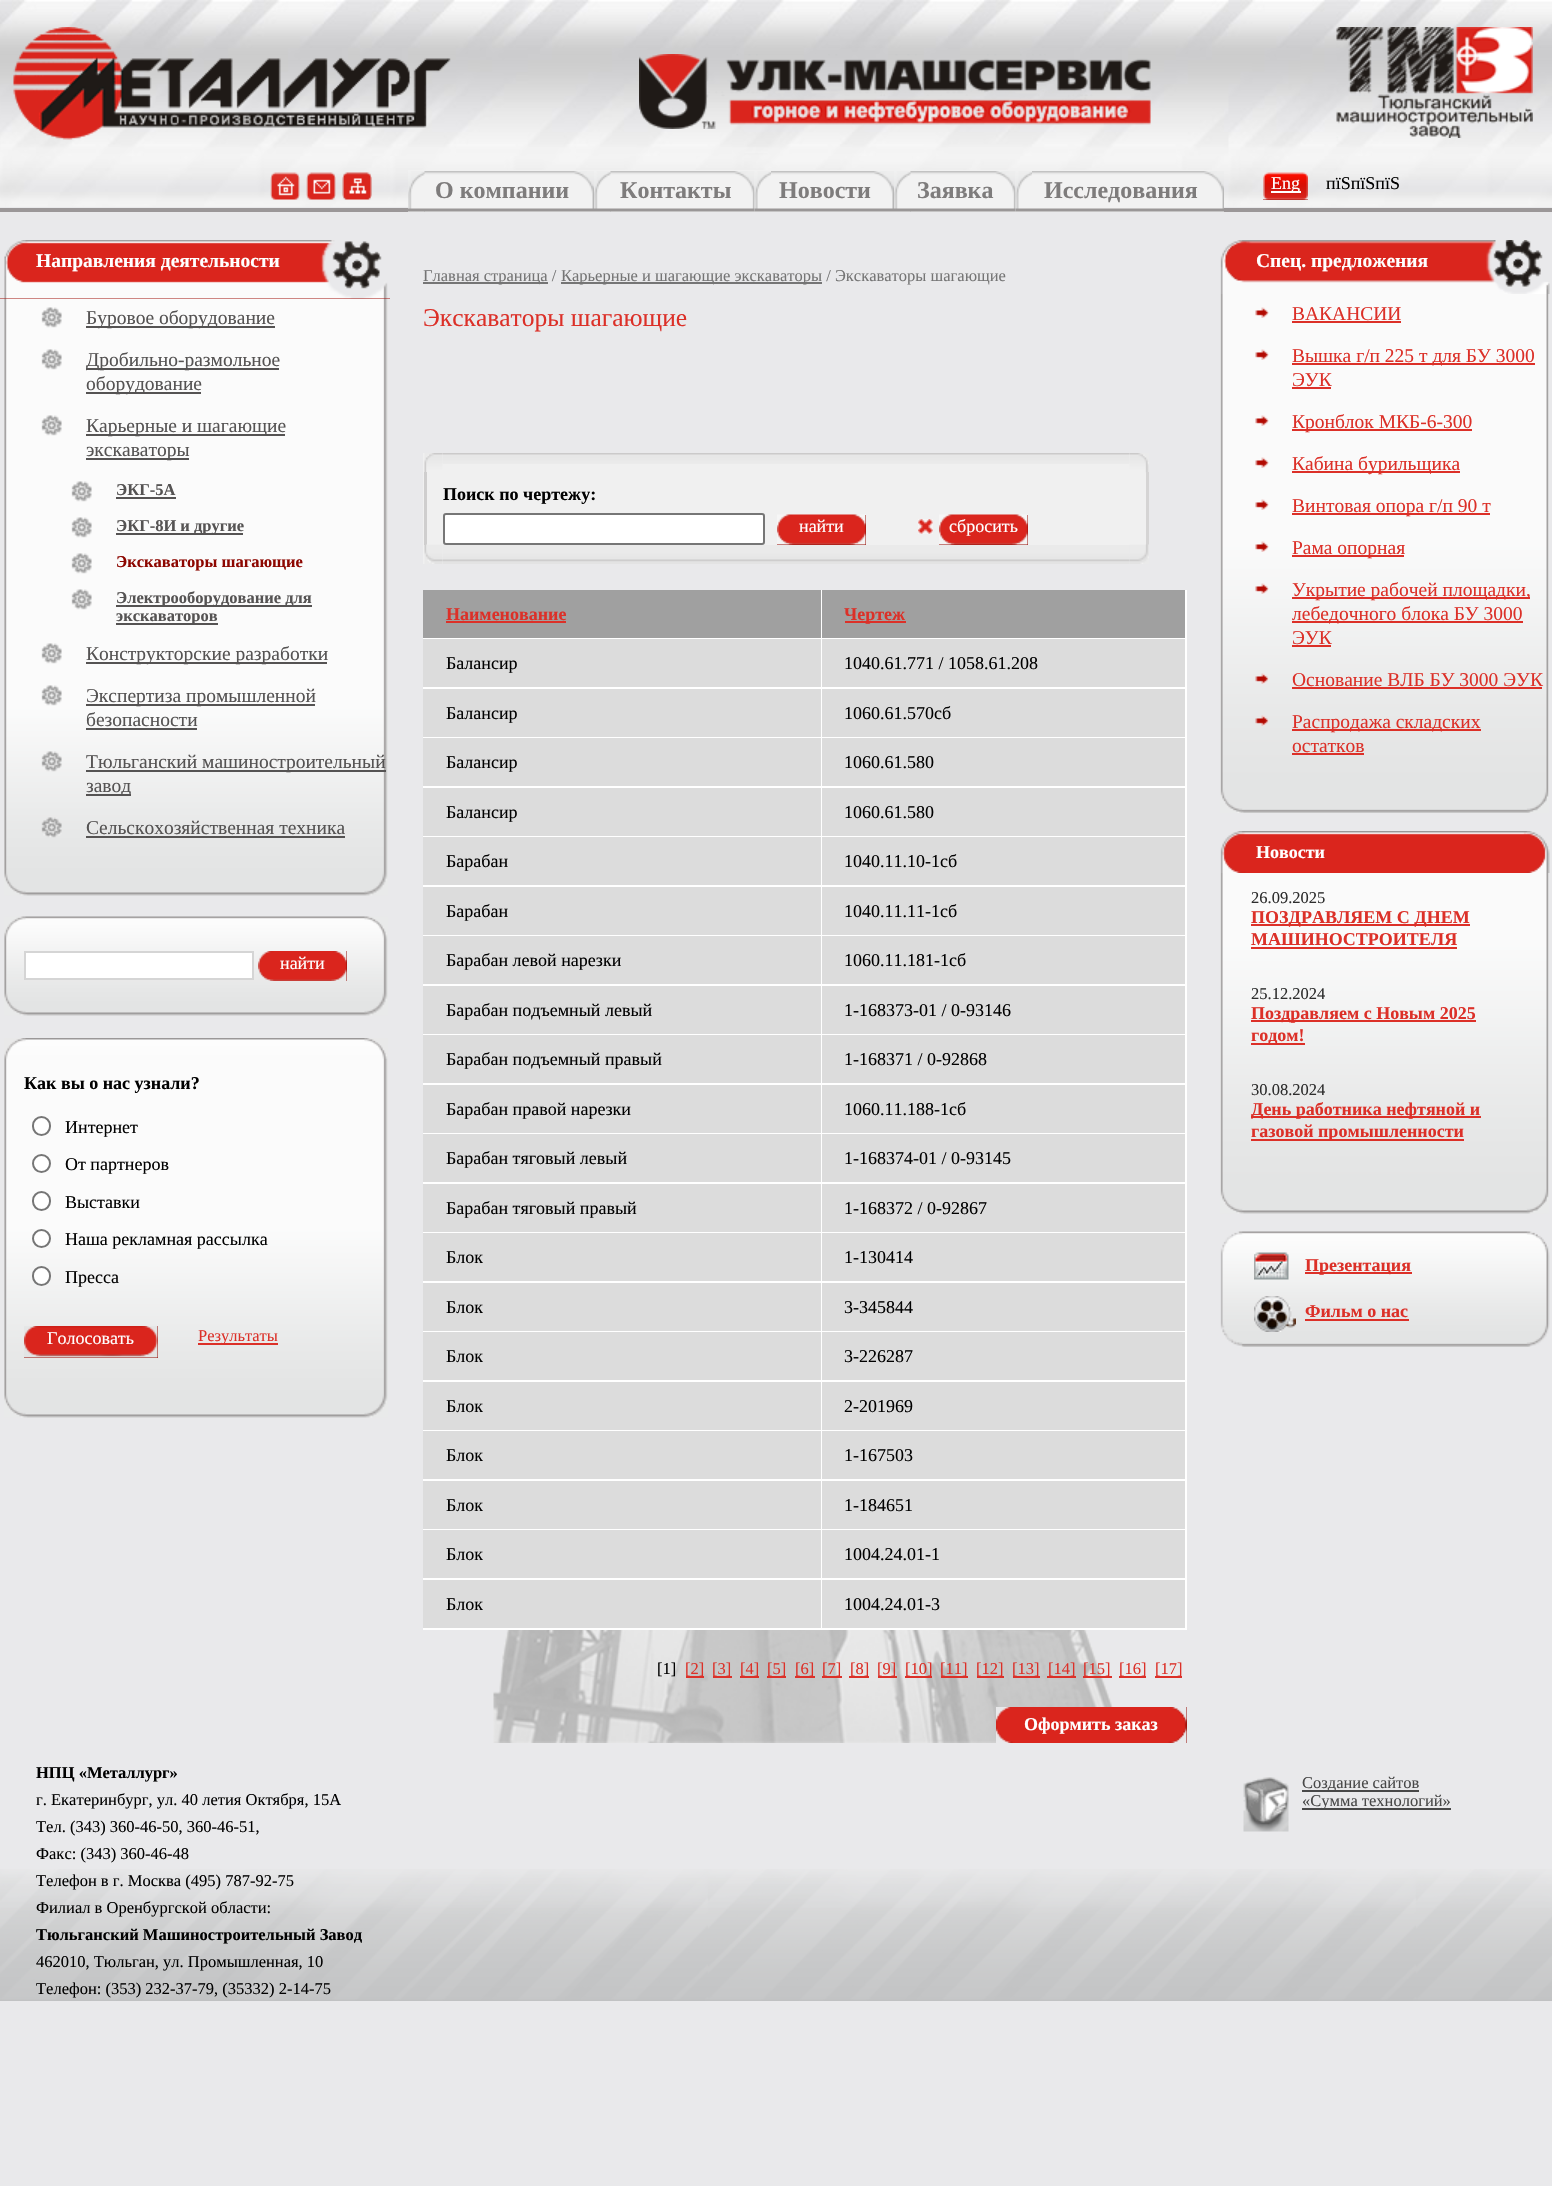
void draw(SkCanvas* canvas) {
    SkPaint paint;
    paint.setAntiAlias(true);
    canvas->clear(0xFFE9E9EB);
    canvas->drawImageRect(SkImages::DeferredFromEncodedData(SkData::MakeFromFileName("img1.png")), SkRect::MakeXYWH(0, 0, 1552, 207), SkSamplingOptions());
    canvas->drawImageRect(SkImages::DeferredFromEncodedData(SkData::MakeFromFileName("img2.png")), SkRect::MakeXYWH(13, 27, 438, 113), SkSamplingOptions());
    canvas->drawImageRect(SkImages::DeferredFromEncodedData(SkData::MakeFromFileName("img3.png")), SkRect::MakeXYWH(639, 54, 512, 75), SkSamplingOptions());
    canvas->drawImageRect(SkImages::DeferredFromEncodedData(SkData::MakeFromFileName("img4.png")), SkRect::MakeXYWH(1336, 27, 197, 111), SkSamplingOptions());
    paint.setColor(0xFF9B9798);
    canvas->drawRect(SkRect::MakeXYWH(0, 208, 408, 4), paint);
    canvas->drawImageRect(SkImages::DeferredFromEncodedData(SkData::MakeFromFileName("img5.png")), SkRect::MakeXYWH(270, 172, 30, 28), SkSamplingOptions());
    canvas->drawImageRect(SkImages::DeferredFromEncodedData(SkData::MakeFromFileName("img6.png")), SkRect::MakeXYWH(306, 172, 30, 28), SkSamplingOptions());
    canvas->drawImageRect(SkImages::DeferredFromEncodedData(SkData::MakeFromFileName("img7.png")), SkRect::MakeXYWH(342, 172, 30, 28), SkSamplingOptions());
    paint.setColor(0xFFF1F1F1);
    canvas->drawRect(SkRect::MakeXYWH(408, 170, 816, 42), paint);
    canvas->drawImageRect(SkImages::DeferredFromEncodedData(SkData::MakeFromFileName("img8.png")), SkRect::MakeXYWH(408, 171, 17, 41), SkSamplingOptions());
    canvas->drawImageRect(SkImages::DeferredFromEncodedData(SkData::MakeFromFileName("img9.png")), SkRect::MakeXYWH(424, 171, 170, 41), SkSamplingOptions());
    SkFont font1(fontMgr->matchFamilyStyle("Liberation Serif", SkFontStyle::Bold()), 24);
    font1.setSubpixel(true);
    paint.setColor(0xFF7E7C7C);
    canvas->drawString("О компании", 435, 198, font1, paint);
    canvas->drawImageRect(SkImages::DeferredFromEncodedData(SkData::MakeFromFileName("img8.png")), SkRect::MakeXYWH(594, 171, 17, 41), SkSamplingOptions());
    canvas->drawImageRect(SkImages::DeferredFromEncodedData(SkData::MakeFromFileName("img10.png")), SkRect::MakeXYWH(610, 171, 145, 41), SkSamplingOptions());
    canvas->drawString("Контакты", 620, 198, font1, paint);
    canvas->drawImageRect(SkImages::DeferredFromEncodedData(SkData::MakeFromFileName("img11.png")), SkRect::MakeXYWH(754, 171, 17, 41), SkSamplingOptions());
    canvas->drawImageRect(SkImages::DeferredFromEncodedData(SkData::MakeFromFileName("img12.png")), SkRect::MakeXYWH(771, 171, 123, 41), SkSamplingOptions());
    canvas->drawString("Новости", 779, 198, font1, paint);
    canvas->drawImageRect(SkImages::DeferredFromEncodedData(SkData::MakeFromFileName("img13.png")), SkRect::MakeXYWH(894, 171, 17, 41), SkSamplingOptions());
    canvas->drawImageRect(SkImages::DeferredFromEncodedData(SkData::MakeFromFileName("img14.png")), SkRect::MakeXYWH(910, 171, 106, 41), SkSamplingOptions());
    canvas->drawString("Заявка", 917, 198, font1, paint);
    canvas->drawImageRect(SkImages::DeferredFromEncodedData(SkData::MakeFromFileName("img15.png")), SkRect::MakeXYWH(1015, 171, 17, 41), SkSamplingOptions());
    canvas->drawImageRect(SkImages::DeferredFromEncodedData(SkData::MakeFromFileName("img16.png")), SkRect::MakeXYWH(1032, 171, 192, 41), SkSamplingOptions());
    canvas->drawString("Исследования", 1044, 198, font1, paint);
    paint.setColor(0xFF9B9798);
    canvas->drawRect(SkRect::MakeXYWH(1224, 208, 328, 4), paint);
    paint.setColor(0xFFA00F09);
    canvas->drawRect(SkRect::MakeXYWH(1263, 199, 45, 1), paint);
    canvas->drawImageRect(SkImages::DeferredFromEncodedData(SkData::MakeFromFileName("img17.png")), SkRect::MakeXYWH(1263, 172, 45, 28), SkSamplingOptions());
    paint.setColor(0xFFFFFFFF);
    canvas->drawRect(SkRect::MakeXYWH(1271, 191, 30, 2), paint);
    SkFont font2(fontMgr->matchFamilyStyle("Liberation Serif", SkFontStyle::Normal()), 18);
    font2.setSubpixel(true);
    canvas->drawString("Eng", 1271, 189, font2, paint);
    paint.setColor(0xFF010101);
    canvas->drawString("пїЅпїЅпїЅ", 1326, 189, font2, paint);
    canvas->drawImageRect(SkImages::DeferredFromEncodedData(SkData::MakeFromFileName("img18.png")), SkRect::MakeXYWH(4, 299, 384, 597), SkSamplingOptions());
    paint.setColor(0xFFA00F09);
    canvas->drawRect(SkRect::MakeXYWH(0, 298, 390, 1), paint);
    canvas->drawImageRect(SkImages::DeferredFromEncodedData(SkData::MakeFromFileName("img19.png")), SkRect::MakeXYWH(0, 240, 390, 59), SkSamplingOptions());
    SkFont font3(fontMgr->matchFamilyStyle("Liberation Serif", SkFontStyle::Bold()), 19.5f);
    font3.setSubpixel(true);
    paint.setColor(0xFFFFFFFF);
    canvas->drawString("Направления деятельности", 36, 267, font3, paint);
    canvas->drawImageRect(SkImages::DeferredFromEncodedData(SkData::MakeFromFileName("img20.png")), SkRect::MakeXYWH(41, 307, 21, 21), SkSamplingOptions());
    paint.setColor(0xFF555353);
    canvas->drawRect(SkRect::MakeXYWH(86, 326, 189, 2), paint);
    SkFont font4(fontMgr->matchFamilyStyle("Liberation Serif", SkFontStyle::Normal()), 19.5f);
    font4.setSubpixel(true);
    canvas->drawString("Буровое оборудование", 86, 324, font4, paint);
    canvas->drawImageRect(SkImages::DeferredFromEncodedData(SkData::MakeFromFileName("img20.png")), SkRect::MakeXYWH(41, 349, 21, 21), SkSamplingOptions());
    canvas->drawRect(SkRect::MakeXYWH(86, 368, 193, 2), paint);
    canvas->drawString("Дробильно-размольное", 86, 366, font4, paint);
    canvas->drawRect(SkRect::MakeXYWH(86, 392, 115, 2), paint);
    canvas->drawString("оборудование", 86, 390, font4, paint);
    canvas->drawImageRect(SkImages::DeferredFromEncodedData(SkData::MakeFromFileName("img20.png")), SkRect::MakeXYWH(41, 415, 21, 21), SkSamplingOptions());
    canvas->drawRect(SkRect::MakeXYWH(86, 434, 199, 2), paint);
    canvas->drawString("Карьерные и шагающие", 86, 432, font4, paint);
    canvas->drawRect(SkRect::MakeXYWH(86, 458, 103, 2), paint);
    canvas->drawString("экскаваторы", 86, 456, font4, paint);
    canvas->drawImageRect(SkImages::DeferredFromEncodedData(SkData::MakeFromFileName("img20.png")), SkRect::MakeXYWH(71, 481, 21, 21), SkSamplingOptions());
    SkFont font5(fontMgr->matchFamilyStyle("Liberation Serif", SkFontStyle::Bold()), 16.5f);
    font5.setSubpixel(true);
    canvas->drawString("ЭКГ-5А", 116, 495, font5, paint);
    canvas->drawRect(SkRect::MakeXYWH(116, 497, 60, 2), paint);
    canvas->drawImageRect(SkImages::DeferredFromEncodedData(SkData::MakeFromFileName("img20.png")), SkRect::MakeXYWH(71, 517, 21, 21), SkSamplingOptions());
    canvas->drawRect(SkRect::MakeXYWH(116, 533, 127, 2), paint);
    canvas->drawString("ЭКГ-8И и другие", 116, 531, font5, paint);
    canvas->drawImageRect(SkImages::DeferredFromEncodedData(SkData::MakeFromFileName("img20.png")), SkRect::MakeXYWH(71, 553, 21, 21), SkSamplingOptions());
    paint.setColor(0xFF8D0701);
    canvas->drawString("Экскаваторы шагающие", 116, 567, font5, paint);
    canvas->drawImageRect(SkImages::DeferredFromEncodedData(SkData::MakeFromFileName("img20.png")), SkRect::MakeXYWH(71, 589, 21, 21), SkSamplingOptions());
    paint.setColor(0xFF555353);
    canvas->drawRect(SkRect::MakeXYWH(116, 605, 196, 2), paint);
    canvas->drawString("Электрооборудование для", 116, 603, font5, paint);
    canvas->drawRect(SkRect::MakeXYWH(116, 623, 102, 2), paint);
    canvas->drawString("экскаваторов", 116, 621, font5, paint);
    canvas->drawImageRect(SkImages::DeferredFromEncodedData(SkData::MakeFromFileName("img20.png")), SkRect::MakeXYWH(41, 643, 21, 21), SkSamplingOptions());
    canvas->drawRect(SkRect::MakeXYWH(86, 662, 241, 2), paint);
    canvas->drawString("Конструкторские разработки", 86, 660, font4, paint);
    canvas->drawImageRect(SkImages::DeferredFromEncodedData(SkData::MakeFromFileName("img20.png")), SkRect::MakeXYWH(41, 685, 21, 21), SkSamplingOptions());
    canvas->drawRect(SkRect::MakeXYWH(86, 704, 229, 2), paint);
    canvas->drawString("Экспертиза промышленной", 86, 702, font4, paint);
    canvas->drawString("безопасности", 86, 726, font4, paint);
    canvas->drawRect(SkRect::MakeXYWH(86, 728, 111, 2), paint);
    canvas->drawImageRect(SkImages::DeferredFromEncodedData(SkData::MakeFromFileName("img21.png")), SkRect::MakeXYWH(41, 751, 21, 21), SkSamplingOptions());
    canvas->drawRect(SkRect::MakeXYWH(86, 770, 300, 2), paint);
    canvas->drawString("Тюльганский машиностроительный", 86, 768, font4, paint);
    canvas->drawRect(SkRect::MakeXYWH(86, 794, 45, 2), paint);
    canvas->drawString("завод", 86, 792, font4, paint);
    canvas->drawImageRect(SkImages::DeferredFromEncodedData(SkData::MakeFromFileName("img22.png")), SkRect::MakeXYWH(41, 817, 21, 21), SkSamplingOptions());
    canvas->drawString("Сельскохозяйственная техника", 86, 834, font4, paint);
    canvas->drawRect(SkRect::MakeXYWH(86, 836, 259, 2), paint);
    canvas->drawImageRect(SkImages::DeferredFromEncodedData(SkData::MakeFromFileName("img23.png")), SkRect::MakeXYWH(4, 916, 384, 100), SkSamplingOptions());
    paint.setColor(0xFFFFFFFF);
    canvas->drawRect(SkRect::MakeXYWH(25, 952, 228, 27), paint);
    paint.setStyle(SkPaint::kStroke_Style);
    paint.setStrokeWidth(2);
    paint.setColor(0xFFD5D5D5);
    canvas->drawRect(SkRect::MakeXYWH(25, 952, 228, 27), paint);
    paint.setStyle(SkPaint::kFill_Style);
    paint.setColor(0xFF940700);
    canvas->drawRect(SkRect::MakeXYWH(346, 951, 1, 30), paint);
    canvas->drawImageRect(SkImages::DeferredFromEncodedData(SkData::MakeFromFileName("img24.png")), SkRect::MakeXYWH(258, 951, 89, 30), SkSamplingOptions());
    paint.setColor(0xFFFFFFFF);
    canvas->drawString("найти", 280, 969, font2, paint);
    canvas->drawImageRect(SkImages::DeferredFromEncodedData(SkData::MakeFromFileName("img25.png")), SkRect::MakeXYWH(4, 1059, 384, 359), SkSamplingOptions());
    canvas->drawImageRect(SkImages::DeferredFromEncodedData(SkData::MakeFromFileName("img26.png")), SkRect::MakeXYWH(4, 1038, 384, 21), SkSamplingOptions());
    SkFont font6(fontMgr->matchFamilyStyle("Liberation Serif", SkFontStyle::Bold()), 18);
    font6.setSubpixel(true);
    paint.setColor(0xFF010101);
    canvas->drawString("Как вы о нас узнали?", 24, 1089, font6, paint);
    paint.setColor(0xFFFFFFFF);
    canvas->drawRoundRect(SkRect::MakeXYWH(33, 1117, 17, 18), 8.5f, 8.5f, paint);
    paint.setStyle(SkPaint::kStroke_Style);
    paint.setColor(0xFF767676);
    canvas->drawRoundRect(SkRect::MakeXYWH(33, 1117, 17, 18), 8.5f, 8.5f, paint);
    paint.setStyle(SkPaint::kFill_Style);
    paint.setColor(0xFF010101);
    canvas->drawString("Интернет", 65, 1133, font2, paint);
    paint.setColor(0xFFFFFFFF);
    canvas->drawCircle(41.5f, 1163.5f, 8.5f, paint);
    paint.setStyle(SkPaint::kStroke_Style);
    paint.setColor(0xFF767676);
    canvas->drawCircle(41.5f, 1163.5f, 8.5f, paint);
    paint.setStyle(SkPaint::kFill_Style);
    paint.setColor(0xFF010101);
    canvas->drawString("От партнеров", 65, 1170, font2, paint);
    paint.setColor(0xFFFFFFFF);
    canvas->drawRoundRect(SkRect::MakeXYWH(33, 1192, 17, 18), 8.5f, 8.5f, paint);
    paint.setStyle(SkPaint::kStroke_Style);
    paint.setColor(0xFF767676);
    canvas->drawRoundRect(SkRect::MakeXYWH(33, 1192, 17, 18), 8.5f, 8.5f, paint);
    paint.setStyle(SkPaint::kFill_Style);
    paint.setColor(0xFF010101);
    canvas->drawString("Выставки", 65, 1208, font2, paint);
    paint.setColor(0xFFFFFFFF);
    canvas->drawCircle(41.5f, 1238.5f, 8.5f, paint);
    paint.setStyle(SkPaint::kStroke_Style);
    paint.setColor(0xFF767676);
    canvas->drawCircle(41.5f, 1238.5f, 8.5f, paint);
    paint.setStyle(SkPaint::kFill_Style);
    paint.setColor(0xFF010101);
    canvas->drawString("Наша рекламная рассылка", 65, 1245, font2, paint);
    paint.setColor(0xFFFFFFFF);
    canvas->drawRoundRect(SkRect::MakeXYWH(33, 1267, 17, 18), 8.5f, 8.5f, paint);
    paint.setStyle(SkPaint::kStroke_Style);
    paint.setColor(0xFF767676);
    canvas->drawRoundRect(SkRect::MakeXYWH(33, 1267, 17, 18), 8.5f, 8.5f, paint);
    paint.setStyle(SkPaint::kFill_Style);
    paint.setColor(0xFF010101);
    canvas->drawString("Пресса", 65, 1283, font2, paint);
    paint.setColor(0xFF940700);
    canvas->drawRect(SkRect::MakeXYWH(24, 1326, 134, 32), paint);
    canvas->drawImageRect(SkImages::DeferredFromEncodedData(SkData::MakeFromFileName("img27.png")), SkRect::MakeXYWH(24, 1326, 134, 32), SkSamplingOptions());
    paint.setColor(0xFFFFFFFF);
    canvas->drawString("Голосовать", 47, 1344, font2, paint);
    paint.setColor(0xFFDC3028);
    canvas->drawRect(SkRect::MakeXYWH(198, 1343, 80, 2), paint);
    SkFont font7(fontMgr->matchFamilyStyle("Liberation Serif", SkFontStyle::Normal()), 16.5f);
    font7.setSubpixel(true);
    canvas->drawString("Результаты", 198, 1341, font7, paint);
    canvas->drawImageRect(SkImages::DeferredFromEncodedData(SkData::MakeFromFileName("img28.png")), SkRect::MakeXYWH(493, 1630, 621, 113), SkSamplingOptions());
    paint.setColor(0xFF757575);
    canvas->drawRect(SkRect::MakeXYWH(423, 282, 125, 2), paint);
    canvas->drawString("Главная страница /", 423, 281, font7, paint);
    canvas->drawRect(SkRect::MakeXYWH(561, 282, 261, 2), paint);
    canvas->drawString("Карьерные и шагающие экскаваторы / Экскаваторы шагающие", 561, 281, font7, paint);
    SkFont font8(fontMgr->matchFamilyStyle("Liberation Serif", SkFontStyle::Normal()), 25.5f);
    font8.setSubpixel(true);
    paint.setColor(0xFFDC3028);
    canvas->drawString("Экскаваторы шагающие", 423, 326, font8, paint);
    paint.setColor(0xFFF0F0F0);
    canvas->drawRect(SkRect::MakeXYWH(423, 453, 707, 20), paint);
    canvas->drawImageRect(SkImages::DeferredFromEncodedData(SkData::MakeFromFileName("img29.png")), SkRect::MakeXYWH(424, 453, 19, 20), SkSamplingOptions());
    canvas->drawImageRect(SkImages::DeferredFromEncodedData(SkData::MakeFromFileName("img30.png")), SkRect::MakeXYWH(442, 453, 688, 11), SkSamplingOptions());
    canvas->drawRect(SkRect::MakeXYWH(1130, 472, 16, 1), paint);
    canvas->drawImageRect(SkImages::DeferredFromEncodedData(SkData::MakeFromFileName("img31.png")), SkRect::MakeXYWH(1129, 453, 20, 20), SkSamplingOptions());
    canvas->drawRect(SkRect::MakeXYWH(423, 473, 723, 72), paint);
    paint.setColor(0xFFCFCECE);
    canvas->drawRect(SkRect::MakeXYWH(424, 472, 3, 73), paint);
    paint.setColor(0xFFD5D4D4);
    canvas->drawRect(SkRect::MakeXYWH(1146, 472, 3, 73), paint);
    paint.setColor(0xFF010101);
    canvas->drawString("Поиск по чертежу:", 443, 500, font6, paint);
    paint.setColor(0xFFFFFFFF);
    canvas->drawRoundRect(SkRect::MakeXYWH(444, 514, 320, 30), 2, 2, paint);
    paint.setStyle(SkPaint::kStroke_Style);
    paint.setColor(0xFF767676);
    canvas->drawRoundRect(SkRect::MakeXYWH(444, 514, 320, 30), 2, 2, paint);
    paint.setStyle(SkPaint::kFill_Style);
    paint.setColor(0xFF940700);
    canvas->drawRect(SkRect::MakeXYWH(777, 515, 89, 30), paint);
    canvas->drawImageRect(SkImages::DeferredFromEncodedData(SkData::MakeFromFileName("img32.png")), SkRect::MakeXYWH(777, 514, 89, 31), SkSamplingOptions());
    paint.setColor(0xFFFFFFFF);
    canvas->drawString("найти", 799, 532, font2, paint);
    canvas->drawImageRect(SkImages::DeferredFromEncodedData(SkData::MakeFromFileName("img33.png")), SkRect::MakeXYWH(918, 519, 15, 15), SkSamplingOptions());
    paint.setColor(0xFF940700);
    canvas->drawRect(SkRect::MakeXYWH(939, 515, 89, 30), paint);
    canvas->drawImageRect(SkImages::DeferredFromEncodedData(SkData::MakeFromFileName("img32.png")), SkRect::MakeXYWH(939, 514, 89, 31), SkSamplingOptions());
    paint.setColor(0xFFFFFFFF);
    canvas->drawString("сбросить", 949, 532, font2, paint);
    paint.setColor(0xFFF0F0F0);
    canvas->drawRect(SkRect::MakeXYWH(423, 545, 20, 19), paint);
    canvas->drawImageRect(SkImages::DeferredFromEncodedData(SkData::MakeFromFileName("img34.png")), SkRect::MakeXYWH(424, 544, 19, 20), SkSamplingOptions());
    canvas->drawImageRect(SkImages::DeferredFromEncodedData(SkData::MakeFromFileName("img35.png")), SkRect::MakeXYWH(442, 545, 688, 19), SkSamplingOptions());
    canvas->drawImageRect(SkImages::DeferredFromEncodedData(SkData::MakeFromFileName("img36.png")), SkRect::MakeXYWH(1129, 544, 20, 20), SkSamplingOptions());
    paint.setColor(0xFFA0A0A0);
    canvas->drawRect(SkRect::MakeXYWH(423, 590, 398, 48), paint);
    paint.setColor(0xFFFFFFFF);
    canvas->drawRect(SkRect::MakeXYWH(821, 590, 1, 1039), paint);
    canvas->drawRect(SkRect::MakeXYWH(423, 638, 399, 1), paint);
    paint.setColor(0xFFDC3028);
    canvas->drawString("Наименование", 446, 620, font6, paint);
    canvas->drawRect(SkRect::MakeXYWH(446, 621, 120, 2), paint);
    paint.setColor(0xFFA0A0A0);
    canvas->drawRect(SkRect::MakeXYWH(822, 590, 363, 48), paint);
    paint.setColor(0xFFFFFFFF);
    canvas->drawRect(SkRect::MakeXYWH(1185, 590, 2, 1039), paint);
    canvas->drawRect(SkRect::MakeXYWH(822, 638, 365, 1), paint);
    paint.setColor(0xFFDC3028);
    canvas->drawRect(SkRect::MakeXYWH(845, 621, 61, 2), paint);
    canvas->drawString("Чертеж", 844, 620, font6, paint);
    paint.setColor(0xFFDCDCDC);
    canvas->drawRect(SkRect::MakeXYWH(423, 639, 398, 48), paint);
    paint.setColor(0xFFFFFFFF);
    canvas->drawRect(SkRect::MakeXYWH(423, 687, 764, 2), paint);
    paint.setColor(0xFF010101);
    canvas->drawString("Балансир", 446, 669, font2, paint);
    paint.setColor(0xFFDCDCDC);
    canvas->drawRect(SkRect::MakeXYWH(822, 639, 363, 48), paint);
    paint.setColor(0xFF010101);
    canvas->drawString("1040.61.771 / 1058.61.208", 844, 669, font2, paint);
    paint.setColor(0xFFDCDCDC);
    canvas->drawRect(SkRect::MakeXYWH(423, 689, 398, 48), paint);
    paint.setColor(0xFFFFFFFF);
    canvas->drawRect(SkRect::MakeXYWH(423, 737, 764, 1), paint);
    paint.setColor(0xFF010101);
    canvas->drawString("Балансир", 446, 719, font2, paint);
    paint.setColor(0xFFDCDCDC);
    canvas->drawRect(SkRect::MakeXYWH(822, 689, 363, 48), paint);
    paint.setColor(0xFF010101);
    canvas->drawString("1060.61.570сб", 844, 719, font2, paint);
    paint.setColor(0xFFDCDCDC);
    canvas->drawRect(SkRect::MakeXYWH(423, 738, 398, 48), paint);
    paint.setColor(0xFFFFFFFF);
    canvas->drawRect(SkRect::MakeXYWH(423, 786, 764, 2), paint);
    paint.setColor(0xFF010101);
    canvas->drawString("Балансир", 446, 768, font2, paint);
    paint.setColor(0xFFDCDCDC);
    canvas->drawRect(SkRect::MakeXYWH(822, 738, 363, 48), paint);
    paint.setColor(0xFF010101);
    canvas->drawString("1060.61.580", 844, 768, font2, paint);
    paint.setColor(0xFFDCDCDC);
    canvas->drawRect(SkRect::MakeXYWH(423, 788, 398, 48), paint);
    paint.setColor(0xFFFFFFFF);
    canvas->drawRect(SkRect::MakeXYWH(423, 836, 764, 1), paint);
    paint.setColor(0xFF010101);
    canvas->drawString("Балансир", 446, 818, font2, paint);
    paint.setColor(0xFFDCDCDC);
    canvas->drawRect(SkRect::MakeXYWH(822, 788, 363, 48), paint);
    paint.setColor(0xFF010101);
    canvas->drawString("1060.61.580", 844, 818, font2, paint);
    paint.setColor(0xFFDCDCDC);
    canvas->drawRect(SkRect::MakeXYWH(423, 837, 398, 48), paint);
    paint.setColor(0xFFFFFFFF);
    canvas->drawRect(SkRect::MakeXYWH(423, 885, 764, 2), paint);
    paint.setColor(0xFF010101);
    canvas->drawString("Барабан", 446, 867, font2, paint);
    paint.setColor(0xFFDCDCDC);
    canvas->drawRect(SkRect::MakeXYWH(822, 837, 363, 48), paint);
    paint.setColor(0xFF010101);
    canvas->drawString("1040.11.10-1сб", 844, 867, font2, paint);
    paint.setColor(0xFFDCDCDC);
    canvas->drawRect(SkRect::MakeXYWH(423, 887, 398, 48), paint);
    paint.setColor(0xFFFFFFFF);
    canvas->drawRect(SkRect::MakeXYWH(423, 935, 764, 1), paint);
    paint.setColor(0xFF010101);
    canvas->drawString("Барабан", 446, 917, font2, paint);
    paint.setColor(0xFFDCDCDC);
    canvas->drawRect(SkRect::MakeXYWH(822, 887, 363, 48), paint);
    paint.setColor(0xFF010101);
    canvas->drawString("1040.11.11-1сб", 844, 917, font2, paint);
    paint.setColor(0xFFDCDCDC);
    canvas->drawRect(SkRect::MakeXYWH(423, 936, 398, 48), paint);
    paint.setColor(0xFFFFFFFF);
    canvas->drawRect(SkRect::MakeXYWH(423, 984, 764, 2), paint);
    paint.setColor(0xFF010101);
    canvas->drawString("Барабан левой нарезки", 446, 966, font2, paint);
    paint.setColor(0xFFDCDCDC);
    canvas->drawRect(SkRect::MakeXYWH(822, 936, 363, 48), paint);
    paint.setColor(0xFF010101);
    canvas->drawString("1060.11.181-1сб", 844, 966, font2, paint);
    paint.setColor(0xFFDCDCDC);
    canvas->drawRect(SkRect::MakeXYWH(423, 986, 398, 48), paint);
    paint.setColor(0xFFFFFFFF);
    canvas->drawRect(SkRect::MakeXYWH(423, 1034, 764, 1), paint);
    paint.setColor(0xFF010101);
    canvas->drawString("Барабан подъемный левый", 446, 1016, font2, paint);
    paint.setColor(0xFFDCDCDC);
    canvas->drawRect(SkRect::MakeXYWH(822, 986, 363, 48), paint);
    paint.setColor(0xFF010101);
    canvas->drawString("1-168373-01 / 0-93146", 844, 1016, font2, paint);
    paint.setColor(0xFFDCDCDC);
    canvas->drawRect(SkRect::MakeXYWH(423, 1035, 398, 48), paint);
    paint.setColor(0xFFFFFFFF);
    canvas->drawRect(SkRect::MakeXYWH(423, 1083, 764, 2), paint);
    paint.setColor(0xFF010101);
    canvas->drawString("Барабан подъемный правый", 446, 1065, font2, paint);
    paint.setColor(0xFFDCDCDC);
    canvas->drawRect(SkRect::MakeXYWH(822, 1035, 363, 48), paint);
    paint.setColor(0xFF010101);
    canvas->drawString("1-168371 / 0-92868", 844, 1065, font2, paint);
    paint.setColor(0xFFDCDCDC);
    canvas->drawRect(SkRect::MakeXYWH(423, 1085, 398, 48), paint);
    paint.setColor(0xFFFFFFFF);
    canvas->drawRect(SkRect::MakeXYWH(423, 1133, 764, 1), paint);
    paint.setColor(0xFF010101);
    canvas->drawString("Барабан правой нарезки", 446, 1115, font2, paint);
    paint.setColor(0xFFDCDCDC);
    canvas->drawRect(SkRect::MakeXYWH(822, 1085, 363, 48), paint);
    paint.setColor(0xFF010101);
    canvas->drawString("1060.11.188-1сб", 844, 1115, font2, paint);
    paint.setColor(0xFFDCDCDC);
    canvas->drawRect(SkRect::MakeXYWH(423, 1134, 398, 48), paint);
    paint.setColor(0xFFFFFFFF);
    canvas->drawRect(SkRect::MakeXYWH(423, 1182, 764, 2), paint);
    paint.setColor(0xFF010101);
    canvas->drawString("Барабан тяговый левый", 446, 1164, font2, paint);
    paint.setColor(0xFFDCDCDC);
    canvas->drawRect(SkRect::MakeXYWH(822, 1134, 363, 48), paint);
    paint.setColor(0xFF010101);
    canvas->drawString("1-168374-01 / 0-93145", 844, 1164, font2, paint);
    paint.setColor(0xFFDCDCDC);
    canvas->drawRect(SkRect::MakeXYWH(423, 1184, 398, 48), paint);
    paint.setColor(0xFFFFFFFF);
    canvas->drawRect(SkRect::MakeXYWH(423, 1232, 764, 1), paint);
    paint.setColor(0xFF010101);
    canvas->drawString("Барабан тяговый правый", 446, 1214, font2, paint);
    paint.setColor(0xFFDCDCDC);
    canvas->drawRect(SkRect::MakeXYWH(822, 1184, 363, 48), paint);
    paint.setColor(0xFF010101);
    canvas->drawString("1-168372 / 0-92867", 844, 1214, font2, paint);
    paint.setColor(0xFFDCDCDC);
    canvas->drawRect(SkRect::MakeXYWH(423, 1233, 398, 48), paint);
    paint.setColor(0xFFFFFFFF);
    canvas->drawRect(SkRect::MakeXYWH(423, 1281, 764, 2), paint);
    paint.setColor(0xFF010101);
    canvas->drawString("Блок", 446, 1263, font2, paint);
    paint.setColor(0xFFDCDCDC);
    canvas->drawRect(SkRect::MakeXYWH(822, 1233, 363, 48), paint);
    paint.setColor(0xFF010101);
    canvas->drawString("1-130414", 844, 1263, font2, paint);
    paint.setColor(0xFFDCDCDC);
    canvas->drawRect(SkRect::MakeXYWH(423, 1283, 398, 48), paint);
    paint.setColor(0xFFFFFFFF);
    canvas->drawRect(SkRect::MakeXYWH(423, 1331, 764, 1), paint);
    paint.setColor(0xFF010101);
    canvas->drawString("Блок", 446, 1313, font2, paint);
    paint.setColor(0xFFDCDCDC);
    canvas->drawRect(SkRect::MakeXYWH(822, 1283, 363, 48), paint);
    paint.setColor(0xFF010101);
    canvas->drawString("3-345844", 844, 1313, font2, paint);
    paint.setColor(0xFFDCDCDC);
    canvas->drawRect(SkRect::MakeXYWH(423, 1332, 398, 48), paint);
    paint.setColor(0xFFFFFFFF);
    canvas->drawRect(SkRect::MakeXYWH(423, 1380, 764, 2), paint);
    paint.setColor(0xFF010101);
    canvas->drawString("Блок", 446, 1362, font2, paint);
    paint.setColor(0xFFDCDCDC);
    canvas->drawRect(SkRect::MakeXYWH(822, 1332, 363, 48), paint);
    paint.setColor(0xFF010101);
    canvas->drawString("3-226287", 844, 1362, font2, paint);
    paint.setColor(0xFFDCDCDC);
    canvas->drawRect(SkRect::MakeXYWH(423, 1382, 398, 48), paint);
    paint.setColor(0xFFFFFFFF);
    canvas->drawRect(SkRect::MakeXYWH(423, 1430, 764, 1), paint);
    paint.setColor(0xFF010101);
    canvas->drawString("Блок", 446, 1412, font2, paint);
    paint.setColor(0xFFDCDCDC);
    canvas->drawRect(SkRect::MakeXYWH(822, 1382, 363, 48), paint);
    paint.setColor(0xFF010101);
    canvas->drawString("2-201969", 844, 1412, font2, paint);
    paint.setColor(0xFFDCDCDC);
    canvas->drawRect(SkRect::MakeXYWH(423, 1431, 398, 48), paint);
    paint.setColor(0xFFFFFFFF);
    canvas->drawRect(SkRect::MakeXYWH(423, 1479, 764, 2), paint);
    paint.setColor(0xFF010101);
    canvas->drawString("Блок", 446, 1461, font2, paint);
    paint.setColor(0xFFDCDCDC);
    canvas->drawRect(SkRect::MakeXYWH(822, 1431, 363, 48), paint);
    paint.setColor(0xFF010101);
    canvas->drawString("1-167503", 844, 1461, font2, paint);
    paint.setColor(0xFFDCDCDC);
    canvas->drawRect(SkRect::MakeXYWH(423, 1481, 398, 48), paint);
    paint.setColor(0xFFFFFFFF);
    canvas->drawRect(SkRect::MakeXYWH(423, 1529, 764, 1), paint);
    paint.setColor(0xFF010101);
    canvas->drawString("Блок", 446, 1511, font2, paint);
    paint.setColor(0xFFDCDCDC);
    canvas->drawRect(SkRect::MakeXYWH(822, 1481, 363, 48), paint);
    paint.setColor(0xFF010101);
    canvas->drawString("1-184651", 844, 1511, font2, paint);
    paint.setColor(0xFFDCDCDC);
    canvas->drawRect(SkRect::MakeXYWH(423, 1530, 398, 48), paint);
    paint.setColor(0xFFFFFFFF);
    canvas->drawRect(SkRect::MakeXYWH(423, 1578, 764, 2), paint);
    paint.setColor(0xFF010101);
    canvas->drawString("Блок", 446, 1560, font2, paint);
    paint.setColor(0xFFDCDCDC);
    canvas->drawRect(SkRect::MakeXYWH(822, 1530, 363, 48), paint);
    paint.setColor(0xFF010101);
    canvas->drawString("1004.24.01-1", 844, 1560, font2, paint);
    paint.setColor(0xFFDCDCDC);
    canvas->drawRect(SkRect::MakeXYWH(423, 1580, 398, 48), paint);
    paint.setColor(0xFFFFFFFF);
    canvas->drawRect(SkRect::MakeXYWH(423, 1628, 764, 2), paint);
    paint.setColor(0xFF010101);
    canvas->drawString("Блок", 446, 1610, font2, paint);
    paint.setColor(0xFFDCDCDC);
    canvas->drawRect(SkRect::MakeXYWH(822, 1580, 363, 48), paint);
    paint.setColor(0xFF010101);
    canvas->drawString("1004.24.01-3", 844, 1610, font2, paint);
    canvas->drawString("[1]", 657, 1674, font7, paint);
    paint.setColor(0xFFDC3028);
    canvas->drawRect(SkRect::MakeXYWH(686, 1676, 18, 2), paint);
    canvas->drawString("[2]", 685, 1674, font7, paint);
    canvas->drawRect(SkRect::MakeXYWH(713, 1676, 19, 2), paint);
    canvas->drawString("[3]", 712, 1674, font7, paint);
    canvas->drawRect(SkRect::MakeXYWH(740, 1676, 19, 2), paint);
    canvas->drawString("[4]", 740, 1674, font7, paint);
    canvas->drawRect(SkRect::MakeXYWH(767, 1676, 19, 2), paint);
    canvas->drawString("[5]", 767, 1674, font7, paint);
    canvas->drawRect(SkRect::MakeXYWH(795, 1676, 20, 2), paint);
    canvas->drawString("[6]", 795, 1674, font7, paint);
    canvas->drawRect(SkRect::MakeXYWH(822, 1676, 20, 2), paint);
    canvas->drawString("[7]", 822, 1674, font7, paint);
    canvas->drawRect(SkRect::MakeXYWH(849, 1676, 20, 2), paint);
    canvas->drawString("[8]", 850, 1674, font7, paint);
    canvas->drawRect(SkRect::MakeXYWH(878, 1676, 19, 2), paint);
    canvas->drawString("[9]", 877, 1674, font7, paint);
    canvas->drawRect(SkRect::MakeXYWH(905, 1676, 27, 2), paint);
    canvas->drawString("[10]", 905, 1674, font7, paint);
    canvas->drawRect(SkRect::MakeXYWH(941, 1676, 27, 2), paint);
    canvas->drawString("[11]", 940, 1674, font7, paint);
    canvas->drawRect(SkRect::MakeXYWH(977, 1676, 27, 2), paint);
    canvas->drawString("[12]", 976, 1674, font7, paint);
    canvas->drawRect(SkRect::MakeXYWH(1013, 1676, 27, 2), paint);
    canvas->drawString("[13]", 1012, 1674, font7, paint);
    canvas->drawRect(SkRect::MakeXYWH(1047, 1676, 29, 2), paint);
    canvas->drawString("[14]", 1048, 1674, font7, paint);
    canvas->drawRect(SkRect::MakeXYWH(1083, 1676, 29, 2), paint);
    canvas->drawString("[15]", 1083, 1674, font7, paint);
    canvas->drawRect(SkRect::MakeXYWH(1119, 1676, 27, 2), paint);
    canvas->drawString("[16]", 1119, 1674, font7, paint);
    canvas->drawRect(SkRect::MakeXYWH(1155, 1676, 27, 2), paint);
    canvas->drawString("[17]", 1155, 1674, font7, paint);
    paint.setColor(0xFF940700);
    canvas->drawRect(SkRect::MakeXYWH(1186, 1707, 1, 36), paint);
    canvas->drawImageRect(SkImages::DeferredFromEncodedData(SkData::MakeFromFileName("img37.png")), SkRect::MakeXYWH(996, 1707, 191, 36), SkSamplingOptions());
    paint.setColor(0xFFFFFFFF);
    canvas->drawString("Оформить заказ", 1024, 1730, font6, paint);
    canvas->drawImageRect(SkImages::DeferredFromEncodedData(SkData::MakeFromFileName("img38.png")), SkRect::MakeXYWH(1220, 294, 329, 519), SkSamplingOptions());
    canvas->drawImageRect(SkImages::DeferredFromEncodedData(SkData::MakeFromFileName("img39.png")), SkRect::MakeXYWH(1220, 240, 332, 54), SkSamplingOptions());
    canvas->drawString("Спец. предложения", 1256, 267, font3, paint);
    canvas->drawImageRect(SkImages::DeferredFromEncodedData(SkData::MakeFromFileName("img40.png")), SkRect::MakeXYWH(1255, 307, 14, 11), SkSamplingOptions());
    paint.setColor(0xFFDC3028);
    canvas->drawString("ВАКАНСИИ", 1292, 320, font4, paint);
    canvas->drawRect(SkRect::MakeXYWH(1292, 321, 109, 2), paint);
    canvas->drawImageRect(SkImages::DeferredFromEncodedData(SkData::MakeFromFileName("img40.png")), SkRect::MakeXYWH(1255, 349, 14, 11), SkSamplingOptions());
    canvas->drawRect(SkRect::MakeXYWH(1292, 363, 243, 2), paint);
    canvas->drawString("Вышка г/п 225 т для БУ 3000", 1292, 362, font4, paint);
    canvas->drawString("ЭУК", 1292, 386, font4, paint);
    canvas->drawRect(SkRect::MakeXYWH(1292, 387, 39, 2), paint);
    canvas->drawImageRect(SkImages::DeferredFromEncodedData(SkData::MakeFromFileName("img40.png")), SkRect::MakeXYWH(1255, 415, 14, 11), SkSamplingOptions());
    canvas->drawRect(SkRect::MakeXYWH(1292, 429, 180, 2), paint);
    canvas->drawString("Кронблок МКБ-6-300", 1292, 428, font4, paint);
    canvas->drawImageRect(SkImages::DeferredFromEncodedData(SkData::MakeFromFileName("img40.png")), SkRect::MakeXYWH(1255, 457, 14, 11), SkSamplingOptions());
    canvas->drawRect(SkRect::MakeXYWH(1292, 471, 168, 2), paint);
    canvas->drawString("Кабина бурильщика", 1292, 470, font4, paint);
    canvas->drawImageRect(SkImages::DeferredFromEncodedData(SkData::MakeFromFileName("img40.png")), SkRect::MakeXYWH(1255, 499, 14, 11), SkSamplingOptions());
    canvas->drawRect(SkRect::MakeXYWH(1292, 513, 198, 2), paint);
    canvas->drawString("Винтовая опора г/п 90 т", 1292, 512, font4, paint);
    canvas->drawImageRect(SkImages::DeferredFromEncodedData(SkData::MakeFromFileName("img41.png")), SkRect::MakeXYWH(1255, 541, 14, 11), SkSamplingOptions());
    canvas->drawRect(SkRect::MakeXYWH(1292, 555, 112, 2), paint);
    canvas->drawString("Рама опорная", 1292, 554, font4, paint);
    canvas->drawImageRect(SkImages::DeferredFromEncodedData(SkData::MakeFromFileName("img42.png")), SkRect::MakeXYWH(1255, 583, 14, 11), SkSamplingOptions());
    canvas->drawRect(SkRect::MakeXYWH(1292, 597, 238, 2), paint);
    canvas->drawString("Укрытие рабочей площадки,", 1292, 596, font4, paint);
    canvas->drawRect(SkRect::MakeXYWH(1292, 621, 231, 2), paint);
    canvas->drawString("лебедочного блока БУ 3000", 1292, 620, font4, paint);
    canvas->drawString("ЭУК", 1292, 644, font4, paint);
    canvas->drawRect(SkRect::MakeXYWH(1292, 645, 39, 2), paint);
    canvas->drawImageRect(SkImages::DeferredFromEncodedData(SkData::MakeFromFileName("img43.png")), SkRect::MakeXYWH(1255, 673, 14, 11), SkSamplingOptions());
    canvas->drawString("Основание ВЛБ БУ 3000 ЭУК", 1292, 686, font4, paint);
    canvas->drawRect(SkRect::MakeXYWH(1292, 687, 250, 2), paint);
    canvas->drawImageRect(SkImages::DeferredFromEncodedData(SkData::MakeFromFileName("img44.png")), SkRect::MakeXYWH(1255, 715, 14, 11), SkSamplingOptions());
    canvas->drawRect(SkRect::MakeXYWH(1292, 729, 189, 2), paint);
    canvas->drawString("Распродажа складских", 1292, 728, font4, paint);
    canvas->drawString("остатков", 1292, 752, font4, paint);
    canvas->drawRect(SkRect::MakeXYWH(1292, 753, 72, 2), paint);
    canvas->drawImageRect(SkImages::DeferredFromEncodedData(SkData::MakeFromFileName("img45.png")), SkRect::MakeXYWH(1220, 873, 329, 341), SkSamplingOptions());
    canvas->drawImageRect(SkImages::DeferredFromEncodedData(SkData::MakeFromFileName("img46.png")), SkRect::MakeXYWH(1220, 831, 332, 42), SkSamplingOptions());
    paint.setColor(0xFFFFFFFF);
    canvas->drawString("Новости", 1256, 858, font6, paint);
    paint.setColor(0xFF2D2D2D);
    canvas->drawString("26.09.2025", 1251, 903, font7, paint);
    paint.setColor(0xFFDC3028);
    canvas->drawRect(SkRect::MakeXYWH(1251, 924, 219, 2), paint);
    canvas->drawString("ПОЗДРАВЛЯЕМ С ДНЕМ", 1251, 923, font6, paint);
    canvas->drawString("МАШИНОСТРОИТЕЛЯ", 1251, 945, font6, paint);
    canvas->drawRect(SkRect::MakeXYWH(1251, 947, 206, 2), paint);
    paint.setColor(0xFF2D2D2D);
    canvas->drawString("25.12.2024", 1251, 999, font7, paint);
    paint.setColor(0xFFDC3028);
    canvas->drawRect(SkRect::MakeXYWH(1251, 1020, 225, 2), paint);
    canvas->drawString("Поздравляем с Новым 2025", 1251, 1019, font6, paint);
    canvas->drawRect(SkRect::MakeXYWH(1251, 1043, 54, 2), paint);
    canvas->drawString("годом!", 1251, 1041, font6, paint);
    paint.setColor(0xFF2D2D2D);
    canvas->drawString("30.08.2024", 1251, 1095, font7, paint);
    paint.setColor(0xFFDC3028);
    canvas->drawRect(SkRect::MakeXYWH(1251, 1116, 230, 2), paint);
    canvas->drawString("День работника нефтяной и", 1251, 1115, font6, paint);
    canvas->drawRect(SkRect::MakeXYWH(1251, 1139, 213, 2), paint);
    canvas->drawString("газовой промышленности", 1251, 1137, font6, paint);
    canvas->drawImageRect(SkImages::DeferredFromEncodedData(SkData::MakeFromFileName("img47.png")), SkRect::MakeXYWH(1220, 1231, 330, 116), SkSamplingOptions());
    canvas->drawImageRect(SkImages::DeferredFromEncodedData(SkData::MakeFromFileName("img48.png")), SkRect::MakeXYWH(1254, 1252, 35, 28), SkSamplingOptions());
    canvas->drawRect(SkRect::MakeXYWH(1305, 1272, 107, 2), paint);
    canvas->drawString("Презентация", 1305, 1271, font6, paint);
    canvas->drawImageRect(SkImages::DeferredFromEncodedData(SkData::MakeFromFileName("img49.png")), SkRect::MakeXYWH(1254, 1296, 42, 36), SkSamplingOptions());
    canvas->drawString("Фильм о нас", 1305, 1317, font6, paint);
    canvas->drawRect(SkRect::MakeXYWH(1305, 1319, 104, 2), paint);
    canvas->drawImageRect(SkImages::DeferredFromEncodedData(SkData::MakeFromFileName("img50.png")), SkRect::MakeXYWH(0, 1869, 1552, 132), SkSamplingOptions());
    paint.setColor(0xFF010101);
    canvas->drawString("НПЦ «Металлург»", 36, 1778, font5, paint);
    canvas->drawString("г. Екатеринбург, ул. 40 летия Октября, 15А", 36, 1805, font7, paint);
    canvas->drawString("Тел. (343) 360-46-50, 360-46-51,", 36, 1832, font7, paint);
    canvas->drawString("Факс: (343) 360-46-48", 36, 1859, font7, paint);
    canvas->drawString("Телефон в г. Москва (495) 787-92-75", 36, 1886, font7, paint);
    canvas->drawString("Филиал в Оренбургской области:", 36, 1913, font7, paint);
    canvas->drawString("Тюльганский Машиностроительный Завод", 36, 1940, font5, paint);
    canvas->drawString("462010, Тюльган, ул. Промышленная, 10", 36, 1967, font7, paint);
    canvas->drawString("Телефон: (353) 232-37-79, (35332) 2-14-75", 36, 1994, font7, paint);
    canvas->drawImageRect(SkImages::DeferredFromEncodedData(SkData::MakeFromFileName("img51.png")), SkRect::MakeXYWH(1243, 1777, 46, 55), SkSamplingOptions());
    paint.setColor(0xFF484848);
    canvas->drawRect(SkRect::MakeXYWH(1302, 1790, 117, 2), paint);
    canvas->drawString("Создание сайтов", 1302, 1788, font7, paint);
    canvas->drawRect(SkRect::MakeXYWH(1302, 1808, 149, 2), paint);
    canvas->drawString("«Сумма технологий»", 1302, 1806, font7, paint);
}
